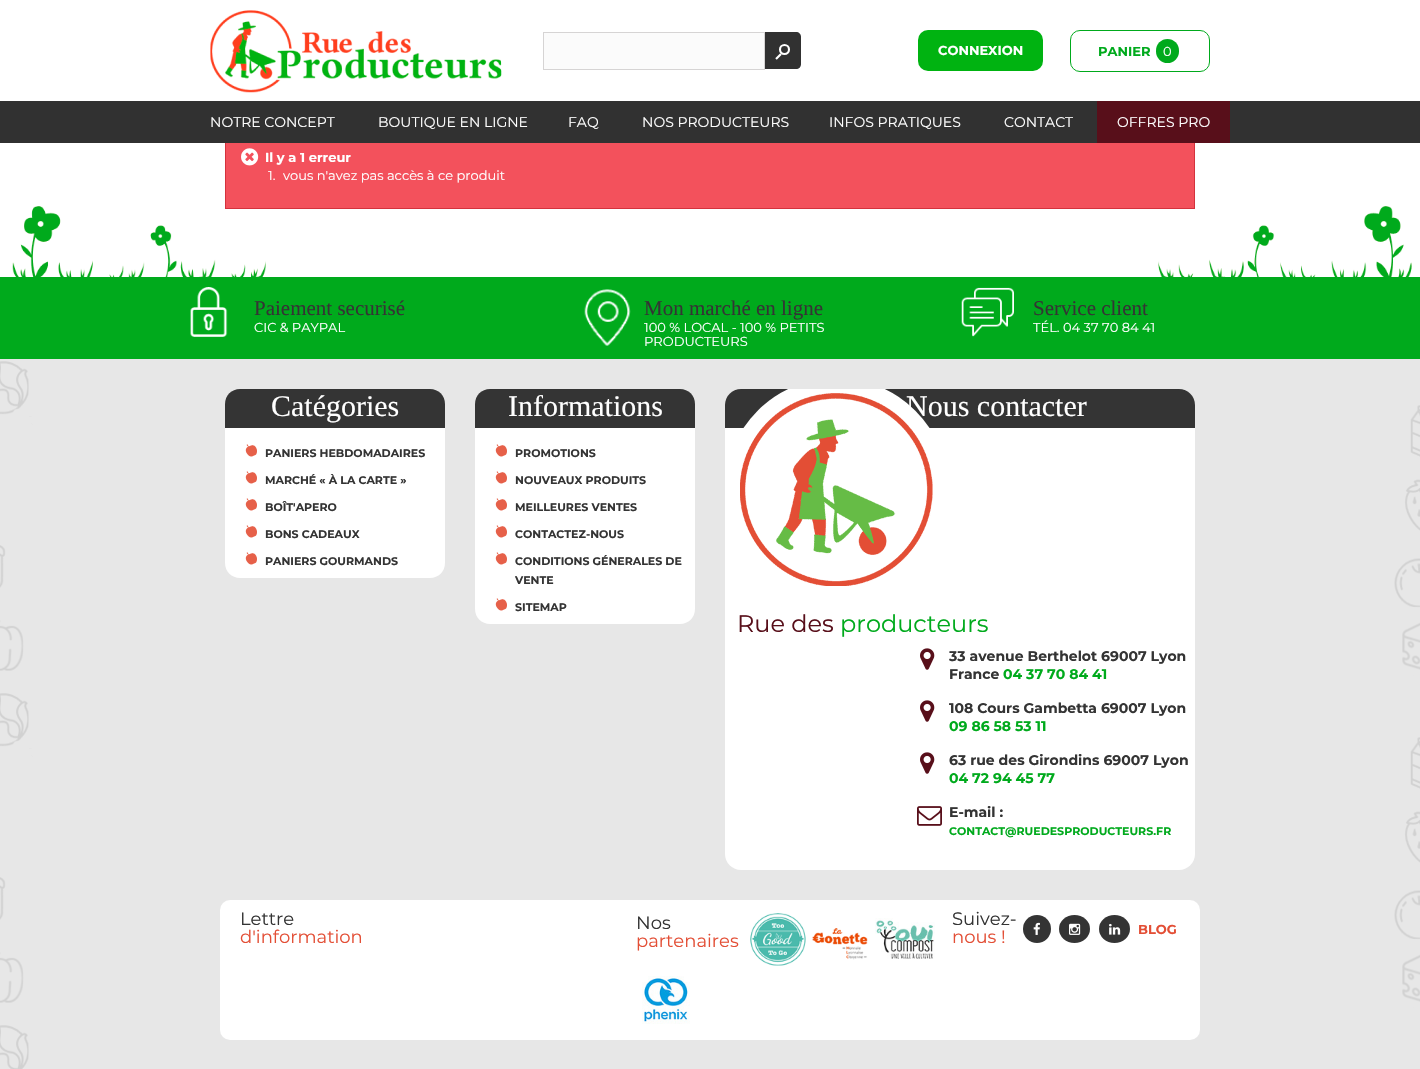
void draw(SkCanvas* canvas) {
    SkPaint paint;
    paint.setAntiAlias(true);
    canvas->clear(0xFFFFFFFF);
    canvas->drawImageRect(SkImages::DeferredFromEncodedData(SkData::MakeFromFileName("img1.png")), SkRect::MakeXYWH(210, 10, 292, 83), SkSamplingOptions());
    paint.setColor(0xFFFBFBFB);
    canvas->drawRect(SkRect::MakeXYWH(543.5f, 32.5f, 221, 37), paint);
    paint.setStyle(SkPaint::kStroke_Style);
    paint.setStrokeWidth(1);
    paint.setColor(0xFFD6D4D4);
    canvas->drawRect(SkRect::MakeXYWH(543.5f, 32.5f, 221, 37), paint);
    paint.setStyle(SkPaint::kFill_Style);
    paint.setColor(0xFF313131);
    canvas->drawPath(SkPathBuilder().moveTo(765, 32).lineTo(796, 32).cubicTo(799, 32, 801, 34, 801, 37).lineTo(801, 64).cubicTo(801, 67, 799, 69, 796, 69).lineTo(765, 69).close().detach(), paint);
    paint.setStyle(SkPaint::kStroke_Style);
    paint.setStrokeWidth(2.1f);
    paint.setColor(0xFFFFFFFF);
    canvas->drawPath(SkPathBuilder().moveTo(781, 54).lineTo(776, 59).detach(), paint);
    canvas->drawCircle(784.5f, 49.5f, 4.5f, paint);
    paint.setStyle(SkPaint::kFill_Style);
    paint.setColor(0xFF00B311);
    canvas->drawRoundRect(SkRect::MakeXYWH(918, 30, 125, 41), 10, 10, paint);
    SkFont font1(fontMgr->matchFamilyStyle("Montserrat", SkFontStyle::Bold()), 13);
    font1.setSubpixel(true);
    paint.setColor(0xFFFFFFFF);
    canvas->drawString("CONNEXION", 938, 55, font1, paint);
    paint.setStyle(SkPaint::kStroke_Style);
    paint.setStrokeWidth(1);
    paint.setColor(0xFF00AA1C);
    canvas->drawRoundRect(SkRect::MakeXYWH(1070.5f, 30.5f, 139, 41), 9.5f, 9.5f, paint);
    paint.setStyle(SkPaint::kFill_Style);
    canvas->drawString("PANIER", 1098, 56, font1, paint);
    canvas->drawRoundRect(SkRect::MakeXYWH(1156, 39, 23, 24), 11.5f, 11.5f, paint);
    SkFont font2(fontMgr->matchFamilyStyle("Montserrat", SkFontStyle::Normal()), 13);
    font2.setSubpixel(true);
    paint.setColor(0xFFFFFFFF);
    canvas->drawString("0", 1163, 56, font2, paint);
    canvas->drawImageRect(SkImages::DeferredFromEncodedData(SkData::MakeFromFileName("img2.png")), SkRect::MakeXYWH(12, 206, 1400, 71), SkSamplingOptions());
    paint.setColor(0xFFF3515C);
    canvas->drawRect(SkRect::MakeXYWH(226, 143, 968, 65), paint);
    paint.setStyle(SkPaint::kStroke_Style);
    paint.setColor(0xFFD4323D);
    canvas->drawRect(SkRect::MakeXYWH(225.5f, 132.5f, 969, 76), paint);
    paint.setStyle(SkPaint::kFill_Style);
    paint.setColor(0xFF313131);
    canvas->drawRect(SkRect::MakeXYWH(0, 101, 1420, 42), paint);
    SkFont font3(fontMgr->matchFamilyStyle("Montserrat", SkFontStyle::Normal()), 14);
    font3.setSubpixel(true);
    paint.setColor(0xFFFFFFFF);
    canvas->drawString("NOTRE CONCEPT", 210, 127, font3, paint);
    canvas->drawString("BOUTIQUE EN LIGNE", 378, 127, font3, paint);
    canvas->drawString("FAQ", 568, 127, font3, paint);
    canvas->drawString("NOS PRODUCTEURS", 642, 127, font3, paint);
    canvas->drawString("INFOS PRATIQUES", 829, 127, font3, paint);
    canvas->drawString("CONTACT", 1004, 127, font3, paint);
    paint.setColor(0xFF580F1A);
    canvas->drawRect(SkRect::MakeXYWH(1097, 101, 133, 42), paint);
    paint.setColor(0xFFFFFFFF);
    canvas->drawString("OFFRES PRO", 1117, 127, font3, paint);
    canvas->drawImageRect(SkImages::DeferredFromEncodedData(SkData::MakeFromFileName("img3.png")), SkRect::MakeXYWH(241, 148, 18, 18), SkSamplingOptions());
    canvas->drawString("Il y a 1 erreur", 265, 162, font1, paint);
    canvas->drawString("1.", 268, 180, font2, paint);
    canvas->drawString("vous n'avez pas accès à ce produit", 283, 180, font2, paint);
    paint.setColor(0xFF00AA1C);
    canvas->drawRect(SkRect::MakeXYWH(0, 277, 1420, 82), paint);
    canvas->drawImageRect(SkImages::DeferredFromEncodedData(SkData::MakeFromFileName("img4.png")), SkRect::MakeXYWH(190, 287, 38, 50), SkSamplingOptions());
    SkFont font4(fontMgr->matchFamilyStyle("Liberation Serif", SkFontStyle::Normal()), 21);
    font4.setSubpixel(true);
    paint.setColor(0xFF343434);
    canvas->drawString("Paiement securisé", 254, 315, font4, paint);
    paint.setColor(0xFFFFFFFF);
    canvas->drawString("CIC & PAYPAL", 254, 332, font2, paint);
    canvas->drawImageRect(SkImages::DeferredFromEncodedData(SkData::MakeFromFileName("img5.png")), SkRect::MakeXYWH(584, 289, 47, 57), SkSamplingOptions());
    paint.setColor(0xFF343434);
    canvas->drawString("Mon marché en ligne", 644, 315, font4, paint);
    paint.setColor(0xFFFFFFFF);
    canvas->drawString("100 % LOCAL - 100 % PETITS", 644, 332, font2, paint);
    canvas->drawString("PRODUCTEURS", 644, 346, font2, paint);
    canvas->drawImageRect(SkImages::DeferredFromEncodedData(SkData::MakeFromFileName("img6.png")), SkRect::MakeXYWH(961, 287, 53, 50), SkSamplingOptions());
    paint.setColor(0xFF343434);
    canvas->drawString("Service client", 1033, 315, font4, paint);
    paint.setColor(0xFFFFFFFF);
    canvas->drawString("TÉL. 04 37 70 84 41", 1033, 332, font2, paint);
    paint.setColor(0xFFE7E7E7);
    canvas->drawRect(SkRect::MakeXYWH(0, 359, 1420, 2), paint);
    canvas->drawImageRect(SkImages::DeferredFromEncodedData(SkData::MakeFromFileName("img7.png")), SkRect::MakeXYWH(0, 361, 1420, 708), SkSamplingOptions());
    paint.setColor(0xFF343434);
    canvas->drawPath(SkPathBuilder().moveTo(240, 389).lineTo(430, 389).cubicTo(438.5f, 389, 445, 395.5f, 445, 404).lineTo(445, 428).lineTo(225, 428).lineTo(225, 404).cubicTo(225, 395.5f, 231.5f, 389, 240, 389).close().detach(), paint);
    SkFont font5(fontMgr->matchFamilyStyle("Liberation Serif", SkFontStyle::Normal()), 30);
    font5.setSubpixel(true);
    paint.setColor(0xFFFFFFFF);
    canvas->drawString("Catégories", 271, 416, font5, paint);
    canvas->drawPath(SkPathBuilder().moveTo(225, 428).lineTo(445, 428).lineTo(445, 563).cubicTo(445, 571.5f, 438.5f, 578, 430, 578).lineTo(240, 578).cubicTo(231.5f, 578, 225, 571.5f, 225, 563).close().detach(), paint);
    canvas->drawImageRect(SkImages::DeferredFromEncodedData(SkData::MakeFromFileName("img8.png")), SkRect::MakeXYWH(245, 444, 12, 13), SkSamplingOptions());
    SkFont font6(fontMgr->matchFamilyStyle("Montserrat", SkFontStyle::Bold()), 11);
    font6.setSubpixel(true);
    paint.setColor(0xFF343434);
    canvas->drawString("PANIERS HEBDOMADAIRES", 265, 457, font6, paint);
    canvas->drawImageRect(SkImages::DeferredFromEncodedData(SkData::MakeFromFileName("img8.png")), SkRect::MakeXYWH(245, 471, 12, 13), SkSamplingOptions());
    canvas->drawString("MARCHÉ « À LA CARTE »", 265, 484, font6, paint);
    canvas->drawImageRect(SkImages::DeferredFromEncodedData(SkData::MakeFromFileName("img8.png")), SkRect::MakeXYWH(245, 498, 12, 13), SkSamplingOptions());
    canvas->drawString("BOÎT'APERO", 265, 511, font6, paint);
    canvas->drawImageRect(SkImages::DeferredFromEncodedData(SkData::MakeFromFileName("img8.png")), SkRect::MakeXYWH(245, 525, 12, 13), SkSamplingOptions());
    canvas->drawString("BONS CADEAUX", 265, 538, font6, paint);
    canvas->drawImageRect(SkImages::DeferredFromEncodedData(SkData::MakeFromFileName("img8.png")), SkRect::MakeXYWH(245, 552, 12, 13), SkSamplingOptions());
    canvas->drawString("PANIERS GOURMANDS", 265, 565, font6, paint);
    canvas->drawPath(SkPathBuilder().moveTo(490, 389).lineTo(680, 389).cubicTo(688.5f, 389, 695, 395.5f, 695, 404).lineTo(695, 428).lineTo(475, 428).lineTo(475, 404).cubicTo(475, 395.5f, 481.5f, 389, 490, 389).close().detach(), paint);
    paint.setColor(0xFFFFFFFF);
    canvas->drawString("Informations", 508, 416, font5, paint);
    canvas->drawPath(SkPathBuilder().moveTo(475, 428).lineTo(695, 428).lineTo(695, 609).cubicTo(695, 617.5f, 688.5f, 624, 680, 624).lineTo(490, 624).cubicTo(481.5f, 624, 475, 617.5f, 475, 609).close().detach(), paint);
    canvas->drawImageRect(SkImages::DeferredFromEncodedData(SkData::MakeFromFileName("img8.png")), SkRect::MakeXYWH(495, 444, 12, 13), SkSamplingOptions());
    paint.setColor(0xFF343434);
    canvas->drawString("PROMOTIONS", 515, 457, font6, paint);
    canvas->drawImageRect(SkImages::DeferredFromEncodedData(SkData::MakeFromFileName("img8.png")), SkRect::MakeXYWH(495, 471, 12, 13), SkSamplingOptions());
    canvas->drawString("NOUVEAUX PRODUITS", 515, 484, font6, paint);
    canvas->drawImageRect(SkImages::DeferredFromEncodedData(SkData::MakeFromFileName("img8.png")), SkRect::MakeXYWH(495, 498, 12, 13), SkSamplingOptions());
    canvas->drawString("MEILLEURES VENTES", 515, 511, font6, paint);
    canvas->drawImageRect(SkImages::DeferredFromEncodedData(SkData::MakeFromFileName("img8.png")), SkRect::MakeXYWH(495, 525, 12, 13), SkSamplingOptions());
    canvas->drawString("CONTACTEZ-NOUS", 515, 538, font6, paint);
    canvas->drawImageRect(SkImages::DeferredFromEncodedData(SkData::MakeFromFileName("img8.png")), SkRect::MakeXYWH(495, 552, 12, 13), SkSamplingOptions());
    canvas->drawString("CONDITIONS GÉNERALES DE", 515, 565, font6, paint);
    canvas->drawString("VENTE", 515, 584, font6, paint);
    canvas->drawImageRect(SkImages::DeferredFromEncodedData(SkData::MakeFromFileName("img8.png")), SkRect::MakeXYWH(495, 598, 12, 13), SkSamplingOptions());
    canvas->drawString("SITEMAP", 515, 611, font6, paint);
    paint.setColor(0xFFFFFFFF);
    canvas->drawRoundRect(SkRect::MakeXYWH(725, 389, 470, 481), 16, 16, paint);
    paint.setColor(0xFF343434);
    canvas->drawPath(SkPathBuilder().moveTo(741, 389).lineTo(1179, 389).cubicTo(1188, 389, 1195, 396, 1195, 405).lineTo(1195, 428).lineTo(725, 428).lineTo(725, 405).cubicTo(725, 396, 732, 389, 741, 389).close().detach(), paint);
    canvas->drawImageRect(SkImages::DeferredFromEncodedData(SkData::MakeFromFileName("img9.png")), SkRect::MakeXYWH(740, 389, 193, 197), SkSamplingOptions());
    paint.setColor(0xFFFFFFFF);
    canvas->drawString("Nous contacter", 906, 416, font5, paint);
    SkFont font7(fontMgr->matchFamilyStyle("Montserrat", SkFontStyle::Normal()), 24);
    font7.setSubpixel(true);
    paint.setColor(0xFF580F1A);
    canvas->drawString("Rue des", 737, 632, font7, paint);
    paint.setColor(0xFF00AA1C);
    canvas->drawString("producteurs", 840, 632, font7, paint);
    canvas->drawImageRect(SkImages::DeferredFromEncodedData(SkData::MakeFromFileName("img10.png")), SkRect::MakeXYWH(920, 648, 15, 22), SkSamplingOptions());
    SkFont font8(fontMgr->matchFamilyStyle("Montserrat", SkFontStyle::Bold()), 14);
    font8.setSubpixel(true);
    paint.setColor(0xFF343434);
    canvas->drawString("33 avenue Berthelot 69007 Lyon", 949, 661, font8, paint);
    canvas->drawString("France", 949, 679, font8, paint);
    paint.setColor(0xFF00AA1C);
    canvas->drawString("04 37 70 84 41", 1003, 679, font8, paint);
    canvas->drawImageRect(SkImages::DeferredFromEncodedData(SkData::MakeFromFileName("img10.png")), SkRect::MakeXYWH(920, 700, 15, 22), SkSamplingOptions());
    paint.setColor(0xFF343434);
    canvas->drawString("108 Cours Gambetta 69007 Lyon", 949, 713, font8, paint);
    paint.setColor(0xFF00AA1C);
    canvas->drawString("09 86 58 53 11", 949, 731, font8, paint);
    canvas->drawImageRect(SkImages::DeferredFromEncodedData(SkData::MakeFromFileName("img10.png")), SkRect::MakeXYWH(920, 752, 15, 22), SkSamplingOptions());
    paint.setColor(0xFF343434);
    canvas->drawString("63 rue des Girondins 69007 Lyon", 949, 765, font8, paint);
    paint.setColor(0xFF00AA1C);
    canvas->drawString("04 72 94 45 77", 949, 783, font8, paint);
    canvas->drawImageRect(SkImages::DeferredFromEncodedData(SkData::MakeFromFileName("img11.png")), SkRect::MakeXYWH(917, 806, 25, 20), SkSamplingOptions());
    paint.setColor(0xFF343434);
    canvas->drawString("E-mail :", 949, 817, font8, paint);
    paint.setColor(0xFF00AA1C);
    canvas->drawString("CONTACT@RUEDESPRODUCTEURS.FR", 949, 835, font6, paint);
    paint.setColor(0xFFFFFFFF);
    canvas->drawRoundRect(SkRect::MakeXYWH(220, 900, 980, 140), 10, 10, paint);
    SkFont font9(fontMgr->matchFamilyStyle("Montserrat", SkFontStyle::Normal()), 18);
    font9.setSubpixel(true);
    paint.setColor(0xFF343434);
    canvas->drawString("Lettre", 240, 925, font9, paint);
    paint.setColor(0xFFE34E35);
    canvas->drawString("d'information", 240, 943, font9, paint);
    paint.setColor(0xFF343434);
    canvas->drawString("Nos", 636, 929, font9, paint);
    paint.setColor(0xFFE34E35);
    canvas->drawString("partenaires", 636, 947, font9, paint);
    canvas->drawImageRect(SkImages::DeferredFromEncodedData(SkData::MakeFromFileName("img12.png")), SkRect::MakeXYWH(750, 913, 56, 53), SkSamplingOptions());
    canvas->drawImageRect(SkImages::DeferredFromEncodedData(SkData::MakeFromFileName("img13.png")), SkRect::MakeXYWH(812, 928, 56, 32), SkSamplingOptions());
    canvas->drawImageRect(SkImages::DeferredFromEncodedData(SkData::MakeFromFileName("img14.png")), SkRect::MakeXYWH(875, 918, 60, 41), SkSamplingOptions());
    canvas->drawImageRect(SkImages::DeferredFromEncodedData(SkData::MakeFromFileName("img15.png")), SkRect::MakeXYWH(642, 976, 48, 48), SkSamplingOptions());
    paint.setColor(0xFF343434);
    canvas->drawString("Suivez-", 952, 925, font9, paint);
    paint.setColor(0xFFE34E35);
    canvas->drawString("nous !", 952, 943, font9, paint);
    paint.setColor(0xFF343434);
    canvas->drawCircle(1037, 929, 14, paint);
    canvas->drawImageRect(SkImages::DeferredFromEncodedData(SkData::MakeFromFileName("img16.png")), SkRect::MakeXYWH(1033, 922, 7, 13), SkSamplingOptions());
    canvas->drawOval(SkRect::MakeXYWH(1059, 915, 31, 28), paint);
    canvas->drawImageRect(SkImages::DeferredFromEncodedData(SkData::MakeFromFileName("img17.png")), SkRect::MakeXYWH(1069, 923, 12, 12), SkSamplingOptions());
    canvas->drawOval(SkRect::MakeXYWH(1099, 915, 31, 28), paint);
    canvas->drawImageRect(SkImages::DeferredFromEncodedData(SkData::MakeFromFileName("img18.png")), SkRect::MakeXYWH(1109, 923, 12, 12), SkSamplingOptions());
    paint.setColor(0xFFE34E35);
    canvas->drawString("BLOG", 1138, 934, font1, paint);
}
